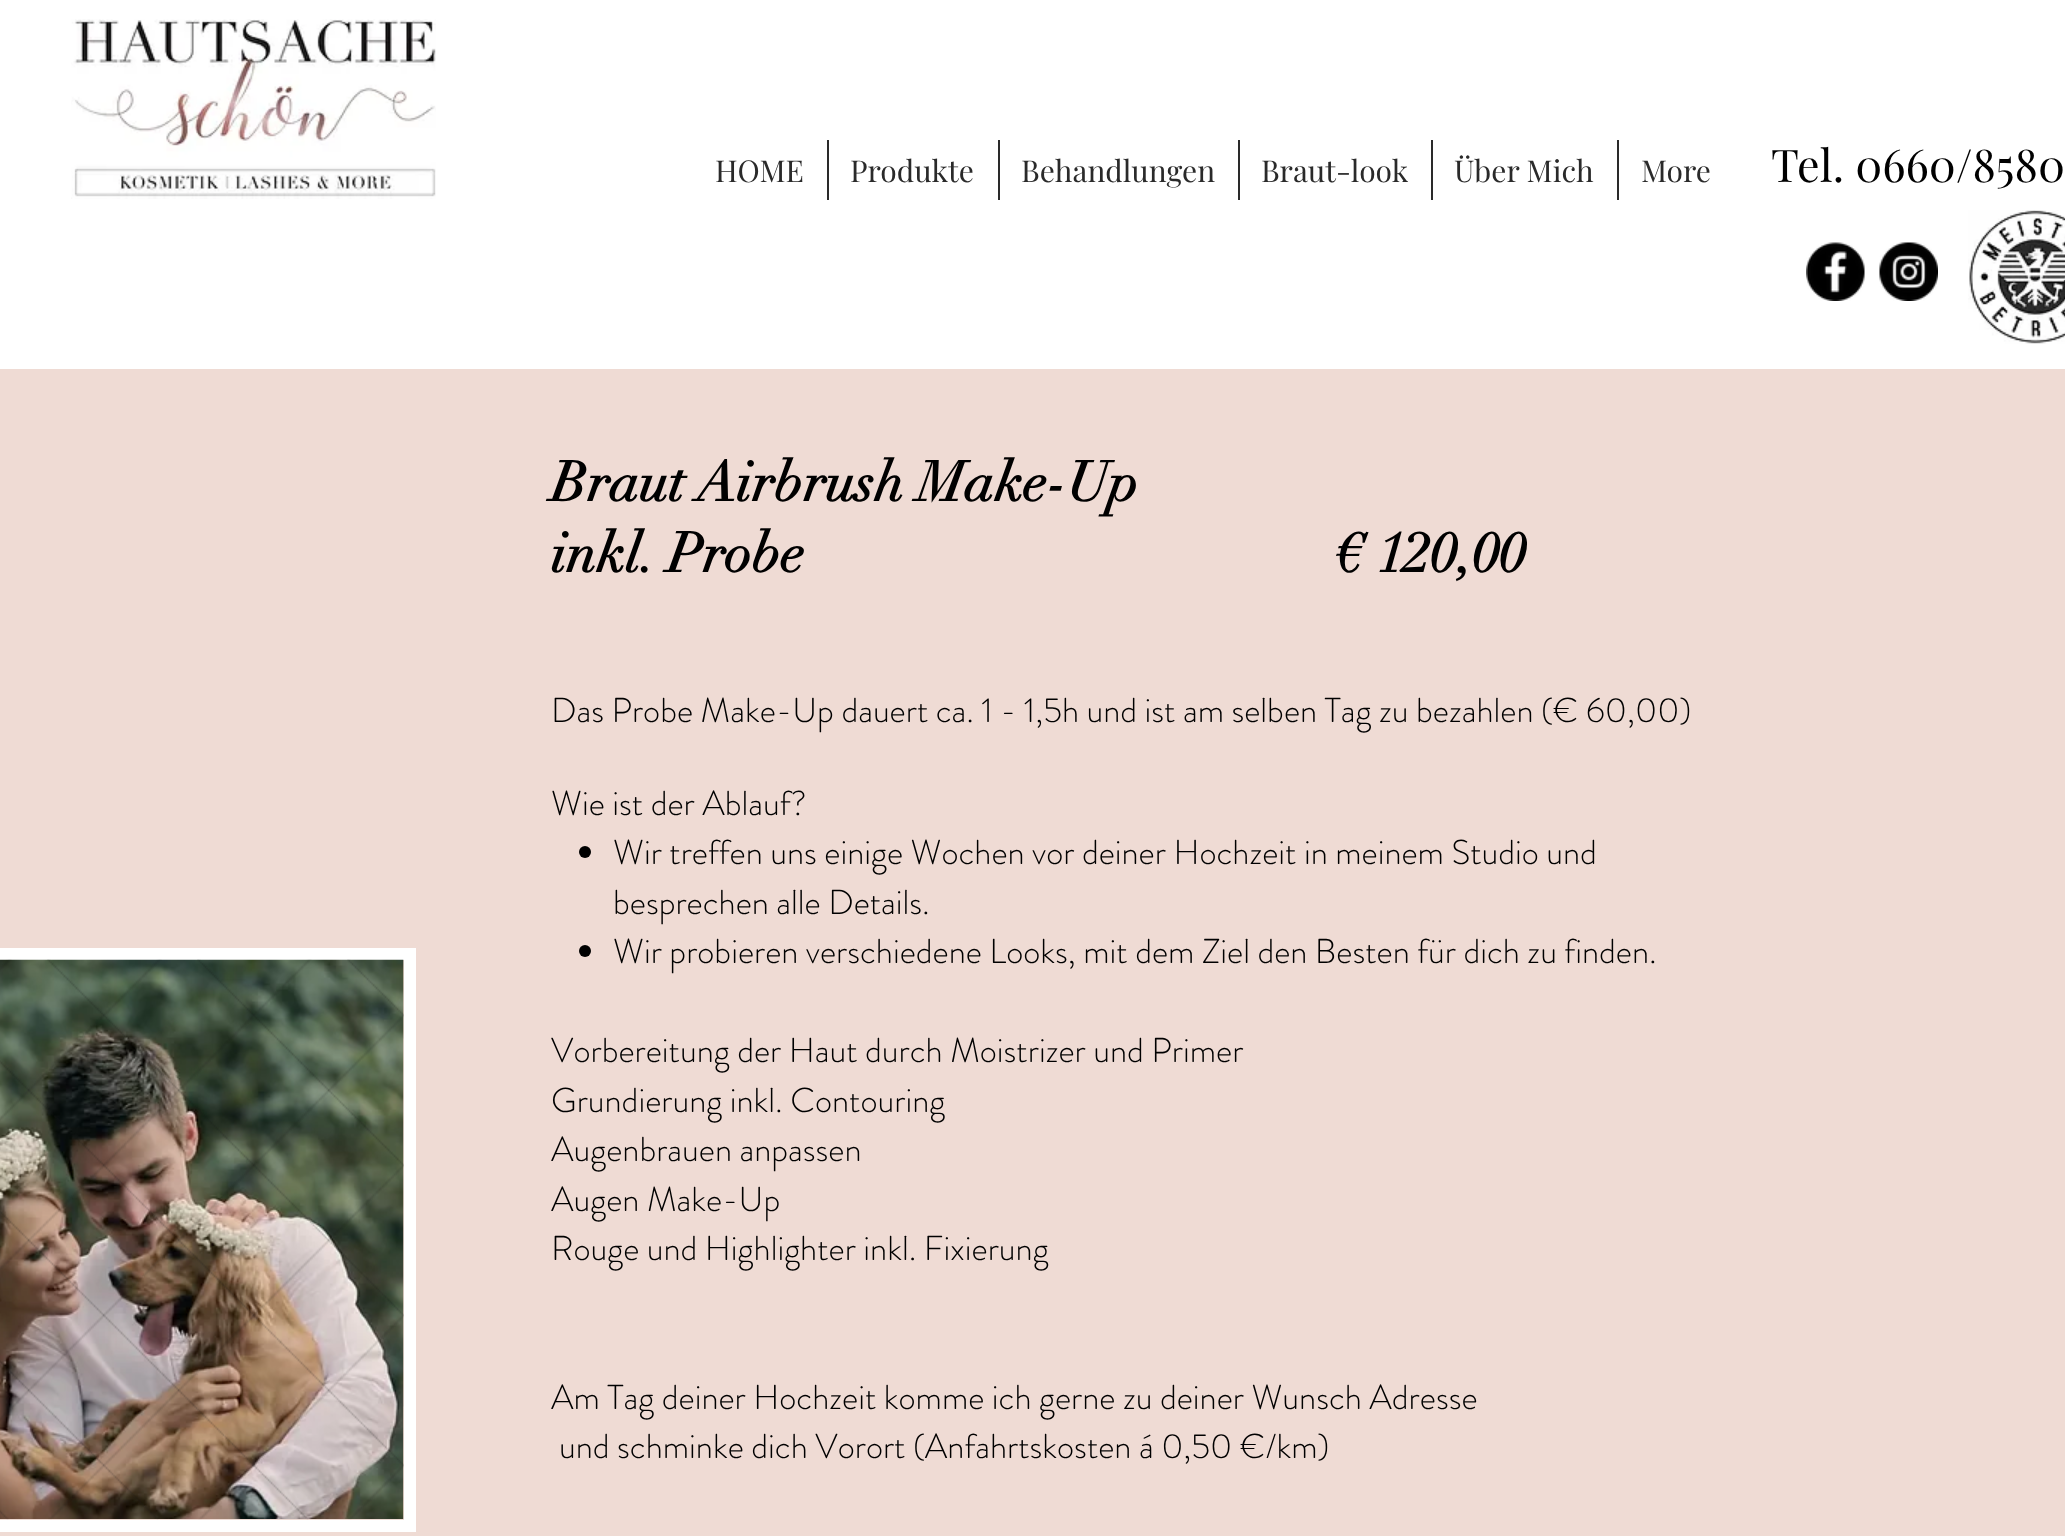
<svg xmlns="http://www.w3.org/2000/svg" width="2065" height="1536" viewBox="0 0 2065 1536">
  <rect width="100%" height="100%" fill="#efdbd4"/>
  <path d="M0 0h2065v369H0z" fill="#fff"/>
  <image x="71" y="19" width="365" height="180" href="img/1.png"/>
  <path d="M827 140h2v60H827z" fill="#2a2a2a"/>
  <path d="M998 140h2v60H998z" fill="#2a2a2a"/>
  <path d="M1238 140h2v60H1238z" fill="#2a2a2a"/>
  <path d="M1431 140h2v60H1431z" fill="#2a2a2a"/>
  <path d="M1617 140h2v60H1617z" fill="#2a2a2a"/>
  <image x="1806" y="242" width="59" height="59" href="img/2.png"/>
  <image x="1879" y="242" width="59" height="59" href="img/3.png"/>
  <image x="1968" y="210" width="97" height="134" href="img/4.png"/>
  <path d="M-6 954h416v572H-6z" fill="none" stroke="#fff" stroke-width="12"/>
  <image x="0" y="959" width="404" height="560" href="img/5.png"/>
  <image x="0" y="959" width="404" height="561" href="img/6.png"/>
  <circle cx="585" cy="852" r="6" fill="#000"/>
  <circle cx="585" cy="951" r="6" fill="#000"/>
  <g font-family="Playfair Display" font-size="30" fill="#2a2a2a">
    <text x="715" y="182">HOME</text>
    <text x="850" y="182">Produkte</text>
    <text x="1021" y="182">Behandlungen</text>
    <text x="1261" y="182">Braut-look</text>
    <text x="1454" y="182">Über Mich</text>
    <text x="1641" y="182">More</text>
  </g>
  <text x="1771" y="182" font-family="Playfair Display" font-size="45" fill="#000">Tel. 0660/8580</text>
  <g font-family="didot" font-size="55.5" font-weight="bold" fill="#000">
    <text x="551" y="501">Braut Airbrush Make-Up</text>
    <text x="551" y="572" xml:space="preserve">inkl. Probe                                        € 120,00</text>
  </g>
  <g font-family="'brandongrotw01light'" font-size="34.5" font-weight="300" fill="#000">
    <text x="551" y="722">Das Probe Make-Up dauert ca. 1 - 1,5h und ist am selben Tag zu bezahlen (€ 60,00)</text>
    <text x="551" y="815">Wie ist der Ablauf?</text>
    <text x="613" y="864">Wir treffen uns einige Wochen vor deiner Hochzeit in meinem Studio und</text>
    <text x="613" y="914">besprechen alle Details.</text>
    <text x="613" y="963">Wir probieren verschiedene Looks, mit dem Ziel den Besten für dich zu finden.</text>
    <text x="551" y="1062">Vorbereitung der Haut durch Moistrizer und Primer</text>
    <text x="551" y="1112">Grundierung inkl. Contouring</text>
    <text x="551" y="1161">Augenbrauen anpassen</text>
    <text x="551" y="1211">Augen Make-Up</text>
    <text x="551" y="1260">Rouge und Highlighter inkl. Fixierung</text>
    <text x="551" y="1409">Am Tag deiner Hochzeit komme ich gerne zu deiner Wunsch Adresse</text>
    <text x="559" y="1458">und schminke dich Vorort (Anfahrtskosten á 0,50 €/km)</text>
  </g>
</svg>
